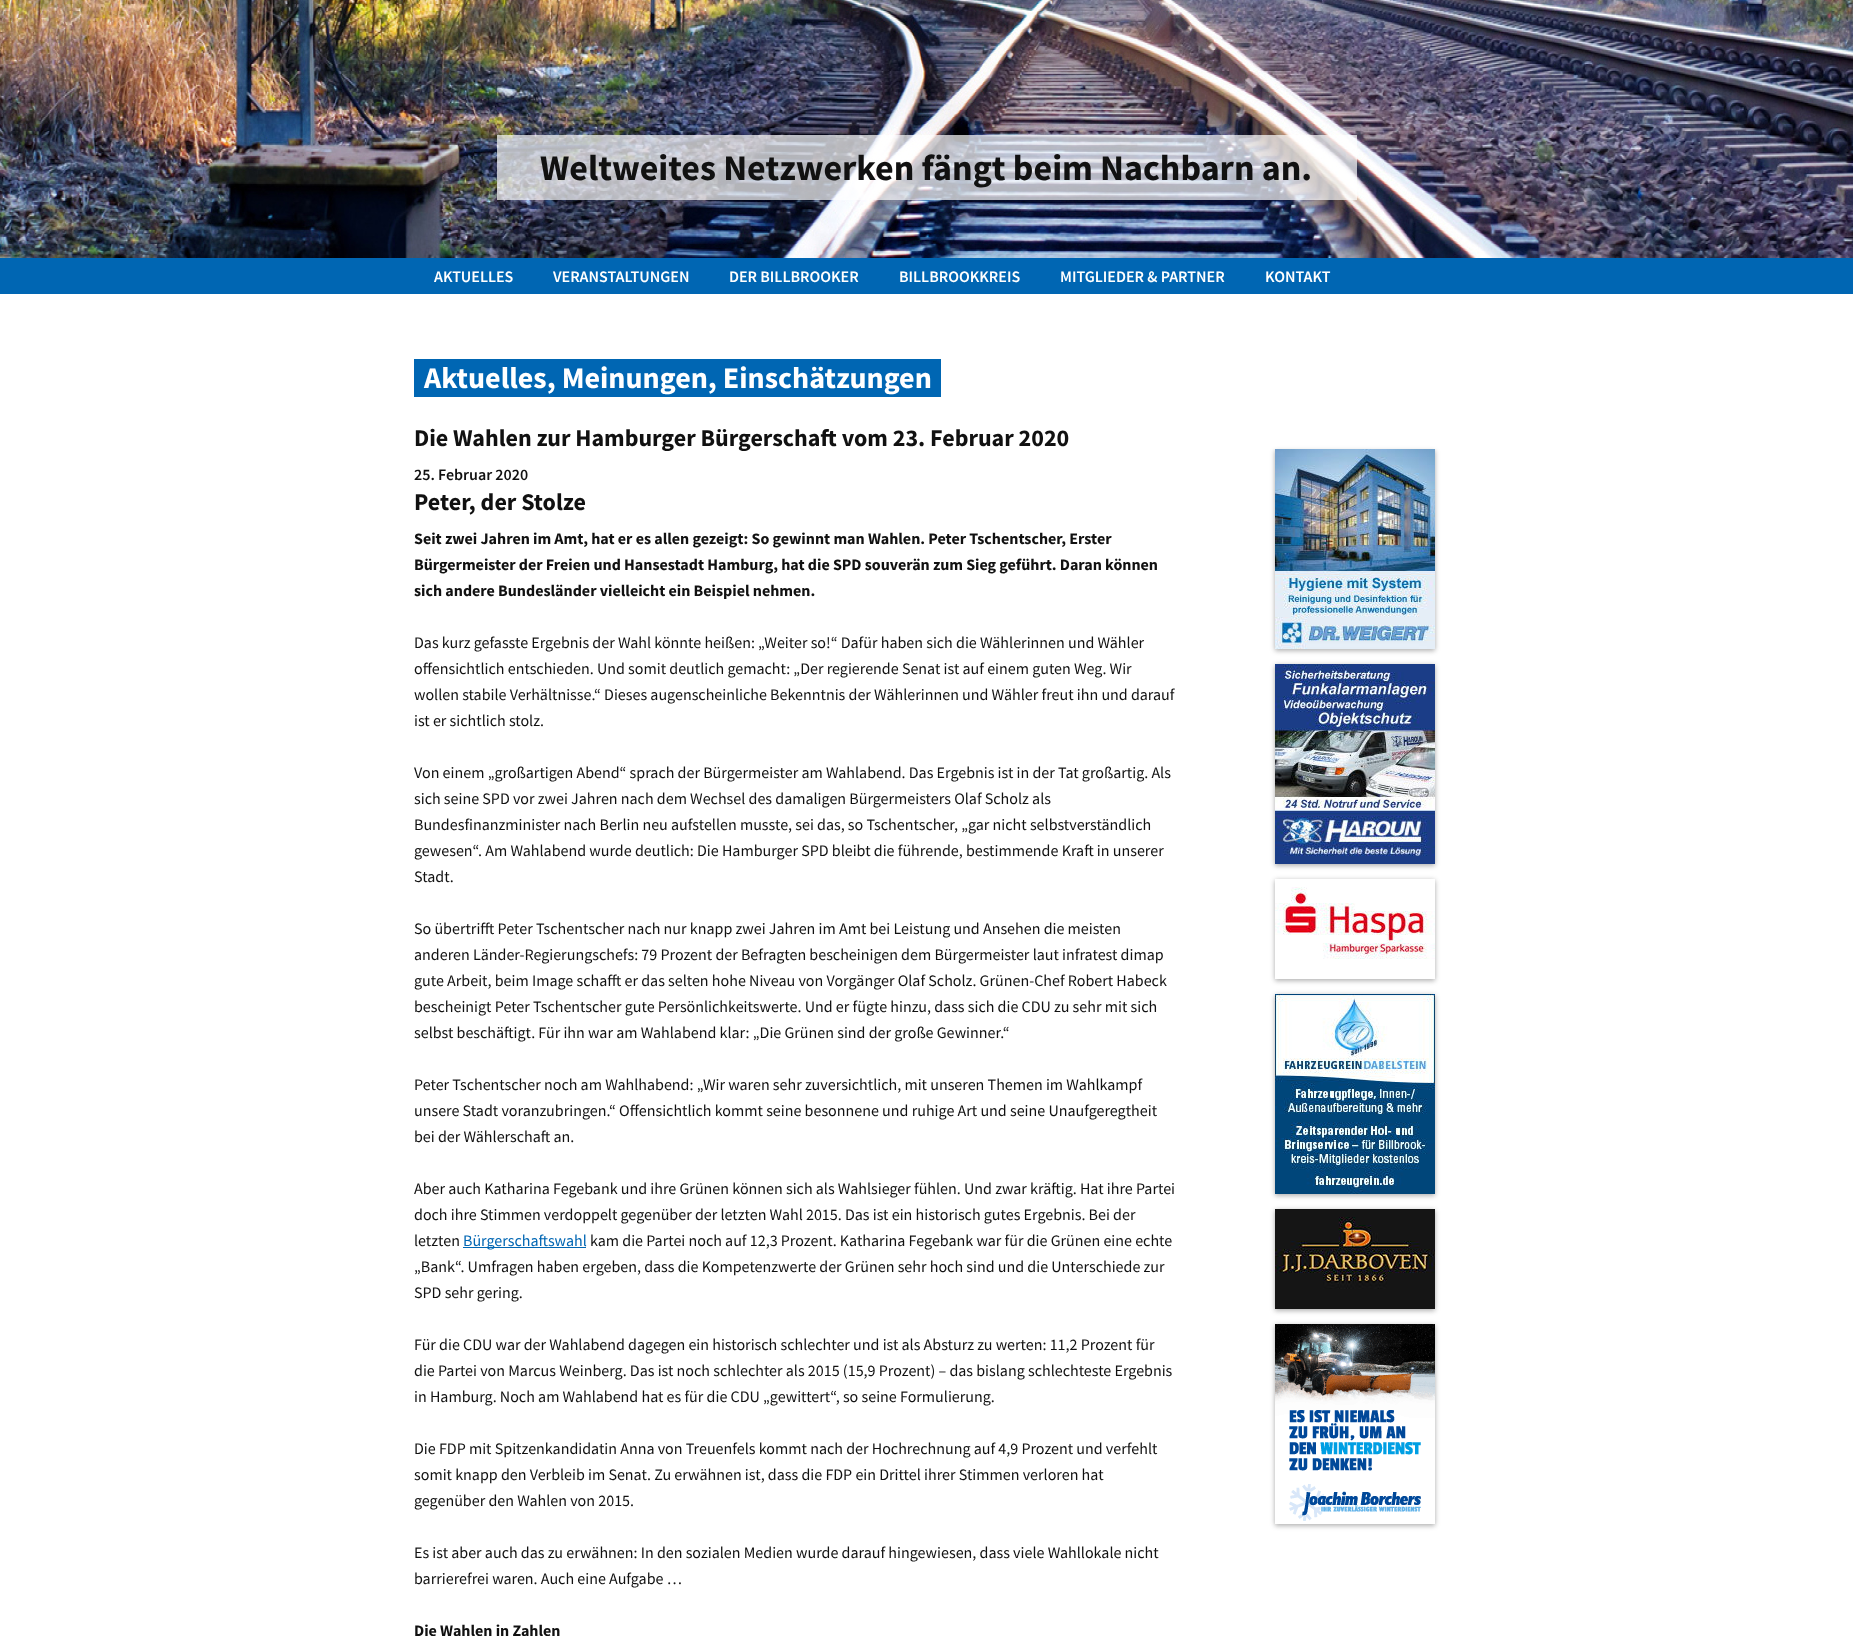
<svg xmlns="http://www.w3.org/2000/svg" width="1853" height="1636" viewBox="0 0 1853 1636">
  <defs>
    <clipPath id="clip1"><path d="M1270 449h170v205H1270z"/></clipPath>
    <clipPath id="clip2"><path d="M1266 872H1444V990H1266ZM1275 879H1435V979H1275Z" clip-rule="evenodd"/></clipPath>
    <clipPath id="clip3"><path d="M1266 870H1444V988H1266ZM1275 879H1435V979H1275Z" clip-rule="evenodd"/></clipPath>
    <clipPath id="clip4"><path d="M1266 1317H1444V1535H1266ZM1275 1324H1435V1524H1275Z" clip-rule="evenodd"/></clipPath>
    <clipPath id="clip5"><path d="M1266 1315H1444V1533H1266ZM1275 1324H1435V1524H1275Z" clip-rule="evenodd"/></clipPath>
  </defs>
  <rect width="100%" height="100%" fill="#fff"/>
  <image x="0" y="0" width="1853" height="258" href="img/1.png"/>
  <path d="M497 135h860v65H497z" fill="#ffffffb3"/>
  <path d="M0 258h1853v36H0z" fill="#0066b3"/>
  <path d="M414 359h527v38H414z" fill="#0066b3"/>
  <path d="M463 1247h123v1H463z" fill="#0066b3"/>
  <path d="M1275 451h160v200H1275z" fill="#00000040" filter="blur(2.5px)"/>
  <g clip-path="url(#clip1)">
    <path d="M1275 449h160v200H1275z" fill="#0000001a" filter="blur(2.5px)"/>
  </g>
  <image x="1275" y="449" width="160" height="200" href="img/2.png"/>
  <path d="M1275 666h160v200H1275z" fill="#00000040" filter="blur(2.5px)"/>
  <path d="M1275 664h160v200H1275z" fill="#0000001a" filter="blur(2.5px)"/>
  <image x="1275" y="664" width="160" height="200" href="img/3.png"/>
  <g clip-path="url(#clip2)">
    <path d="M1275 881h160v100H1275z" fill="#00000040" filter="blur(2.5px)"/>
  </g>
  <g clip-path="url(#clip3)">
    <path d="M1275 879h160v100H1275z" fill="#0000001a" filter="blur(2.5px)"/>
  </g>
  <image x="1275" y="887" width="160" height="72" href="img/4.png"/>
  <path d="M1275 996h160v200H1275z" fill="#00000040" filter="blur(2.5px)"/>
  <path d="M1275 994h160v200H1275z" fill="#0000001a" filter="blur(2.5px)"/>
  <image x="1275" y="994" width="160" height="200" href="img/5.png"/>
  <path d="M1275 1211h160v100H1275z" fill="#00000040" filter="blur(2.5px)"/>
  <path d="M1275 1209h160v100H1275z" fill="#0000001a" filter="blur(2.5px)"/>
  <image x="1275" y="1209" width="160" height="100" href="img/6.png"/>
  <g clip-path="url(#clip4)">
    <path d="M1275 1326h160v200H1275z" fill="#00000040" filter="blur(2.5px)"/>
  </g>
  <g clip-path="url(#clip5)">
    <path d="M1275 1324h160v200H1275z" fill="#0000001a" filter="blur(2.5px)"/>
  </g>
  <image x="1275" y="1324" width="160" height="197" href="img/7.png"/>
  <text x="540" y="180" font-family="Source Sans Pro" font-size="36" font-weight="bold" fill="#111">Weltweites Netzwerken fängt beim Nachbarn an.</text>
  <g font-family="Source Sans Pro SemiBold" font-size="16" font-weight="600" fill="#fff">
    <text x="434" y="282">AKTUELLES</text>
    <text x="553" y="282">VERANSTALTUNGEN</text>
    <text x="729" y="282">DER BILLBROOKER</text>
    <text x="899" y="282">BILLBROOKKREIS</text>
    <text x="1060" y="282">MITGLIEDER &amp; PARTNER</text>
    <text x="1265" y="282">KONTAKT</text>
  </g>
  <text x="424" y="388" font-family="Source Sans Pro" font-size="30" font-weight="bold" fill="#fff">Aktuelles, Meinungen, Einschätzungen</text>
  <text x="414" y="446" font-family="Source Sans Pro" font-size="24" font-weight="bold" fill="#111">Die Wahlen zur Hamburger Bürgerschaft vom 23. Februar 2020</text>
  <text x="414" y="480" font-family="Source Sans Pro SemiBold" font-size="16" font-weight="600" fill="#111">25. Februar 2020</text>
  <text x="414" y="510" font-family="Source Sans Pro" font-size="24" font-weight="bold" fill="#111">Peter, der Stolze</text>
  <g font-family="Source Sans Pro" font-size="16" font-weight="bold" fill="#111">
    <text x="414" y="544">Seit zwei Jahren im Amt, hat er es allen gezeigt: So gewinnt man Wahlen. Peter Tschentscher, Erster</text>
    <text x="414" y="570">Bürgermeister der Freien und Hansestadt Hamburg, hat die SPD souverän zum Sieg geführt. Daran können</text>
    <text x="414" y="596">sich andere Bundesländer vielleicht ein Beispiel nehmen.</text>
  </g>
  <g font-family="Source Sans Pro" font-size="16" fill="#111">
    <text x="414" y="648">Das kurz gefasste Ergebnis der Wahl könnte heißen: „Weiter so!“ Dafür haben sich die Wählerinnen und Wähler</text>
    <text x="414" y="674">offensichtlich entschieden. Und somit deutlich gemacht: „Der regierende Senat ist auf einem guten Weg. Wir</text>
    <text x="414" y="700">wollen stabile Verhältnisse.“ Dieses augenscheinliche Bekenntnis der Wählerinnen und Wähler freut ihn und darauf</text>
    <text x="414" y="726">ist er sichtlich stolz.</text>
    <text x="414" y="778">Von einem „großartigen Abend“ sprach der Bürgermeister am Wahlabend. Das Ergebnis ist in der Tat großartig. Als</text>
    <text x="414" y="804">sich seine SPD vor zwei Jahren nach dem Wechsel des damaligen Bürgermeisters Olaf Scholz als</text>
    <text x="414" y="830">Bundesfinanzminister nach Berlin neu aufstellen musste, sei das, so Tschentscher, „gar nicht selbstverständlich</text>
    <text x="414" y="856">gewesen“. Am Wahlabend wurde deutlich: Die Hamburger SPD bleibt die führende, bestimmende Kraft in unserer</text>
    <text x="414" y="882">Stadt.</text>
    <text x="414" y="934">So übertrifft Peter Tschentscher nach nur knapp zwei Jahren im Amt bei Leistung und Ansehen die meisten</text>
    <text x="414" y="960">anderen Länder-Regierungschefs: 79 Prozent der Befragten bescheinigen dem Bürgermeister laut infratest dimap</text>
    <text x="414" y="986">gute Arbeit, beim Image schafft er das selten hohe Niveau von Vorgänger Olaf Scholz. Grünen-Chef Robert Habeck</text>
    <text x="414" y="1012">bescheinigt Peter Tschentscher gute Persönlichkeitswerte. Und er fügte hinzu, dass sich die CDU zu sehr mit sich</text>
    <text x="414" y="1038">selbst beschäftigt. Für ihn war am Wahlabend klar: „Die Grünen sind der große Gewinner.“</text>
    <text x="414" y="1090">Peter Tschentscher noch am Wahlhabend: „Wir waren sehr zuversichtlich, mit unseren Themen im Wahlkampf</text>
    <text x="414" y="1116">unsere Stadt voranzubringen.“ Offensichtlich kommt seine besonnene und ruhige Art und seine Unaufgeregtheit</text>
    <text x="414" y="1142">bei der Wählerschaft an.</text>
    <text x="414" y="1194">Aber auch Katharina Fegebank und ihre Grünen können sich als Wahlsieger fühlen. Und zwar kräftig. Hat ihre Partei</text>
    <text x="414" y="1220">doch ihre Stimmen verdoppelt gegenüber der letzten Wahl 2015. Das ist ein historisch gutes Ergebnis. Bei der</text>
    <text x="414" y="1246">letzten</text>
  </g>
  <text x="463" y="1246" font-family="Source Sans Pro" font-size="16" fill="#0066b3">Bürgerschaftswahl</text>
  <g font-family="Source Sans Pro" font-size="16" fill="#111">
    <text x="590" y="1246">kam die Partei noch auf 12,3 Prozent. Katharina Fegebank war für die Grünen eine echte</text>
    <text x="414" y="1272">„Bank“. Umfragen haben ergeben, dass die Kompetenzwerte der Grünen sehr hoch sind und die Unterschiede zur</text>
    <text x="414" y="1298">SPD sehr gering.</text>
    <text x="414" y="1350">Für die CDU war der Wahlabend dagegen ein historisch schlechter und ist als Absturz zu werten: 11,2 Prozent für</text>
    <text x="414" y="1376">die Partei von Marcus Weinberg. Das ist noch schlechter als 2015 (15,9 Prozent) – das bislang schlechteste Ergebnis</text>
    <text x="414" y="1402">in Hamburg. Noch am Wahlabend hat es für die CDU „gewittert“, so seine Formulierung.</text>
    <text x="414" y="1454">Die FDP mit Spitzenkandidatin Anna von Treuenfels kommt nach der Hochrechnung auf 4,9 Prozent und verfehlt</text>
    <text x="414" y="1480">somit knapp den Verbleib im Senat. Zu erwähnen ist, dass die FDP ein Drittel ihrer Stimmen verloren hat</text>
    <text x="414" y="1506">gegenüber den Wahlen von 2015.</text>
    <text x="414" y="1558">Es ist aber auch das zu erwähnen: In den sozialen Medien wurde darauf hingewiesen, dass viele Wahllokale nicht</text>
    <text x="414" y="1584">barrierefrei waren. Auch eine Aufgabe …</text>
  </g>
  <text x="414" y="1636" font-family="Source Sans Pro" font-size="16" font-weight="bold" fill="#111">Die Wahlen in Zahlen</text>
</svg>
